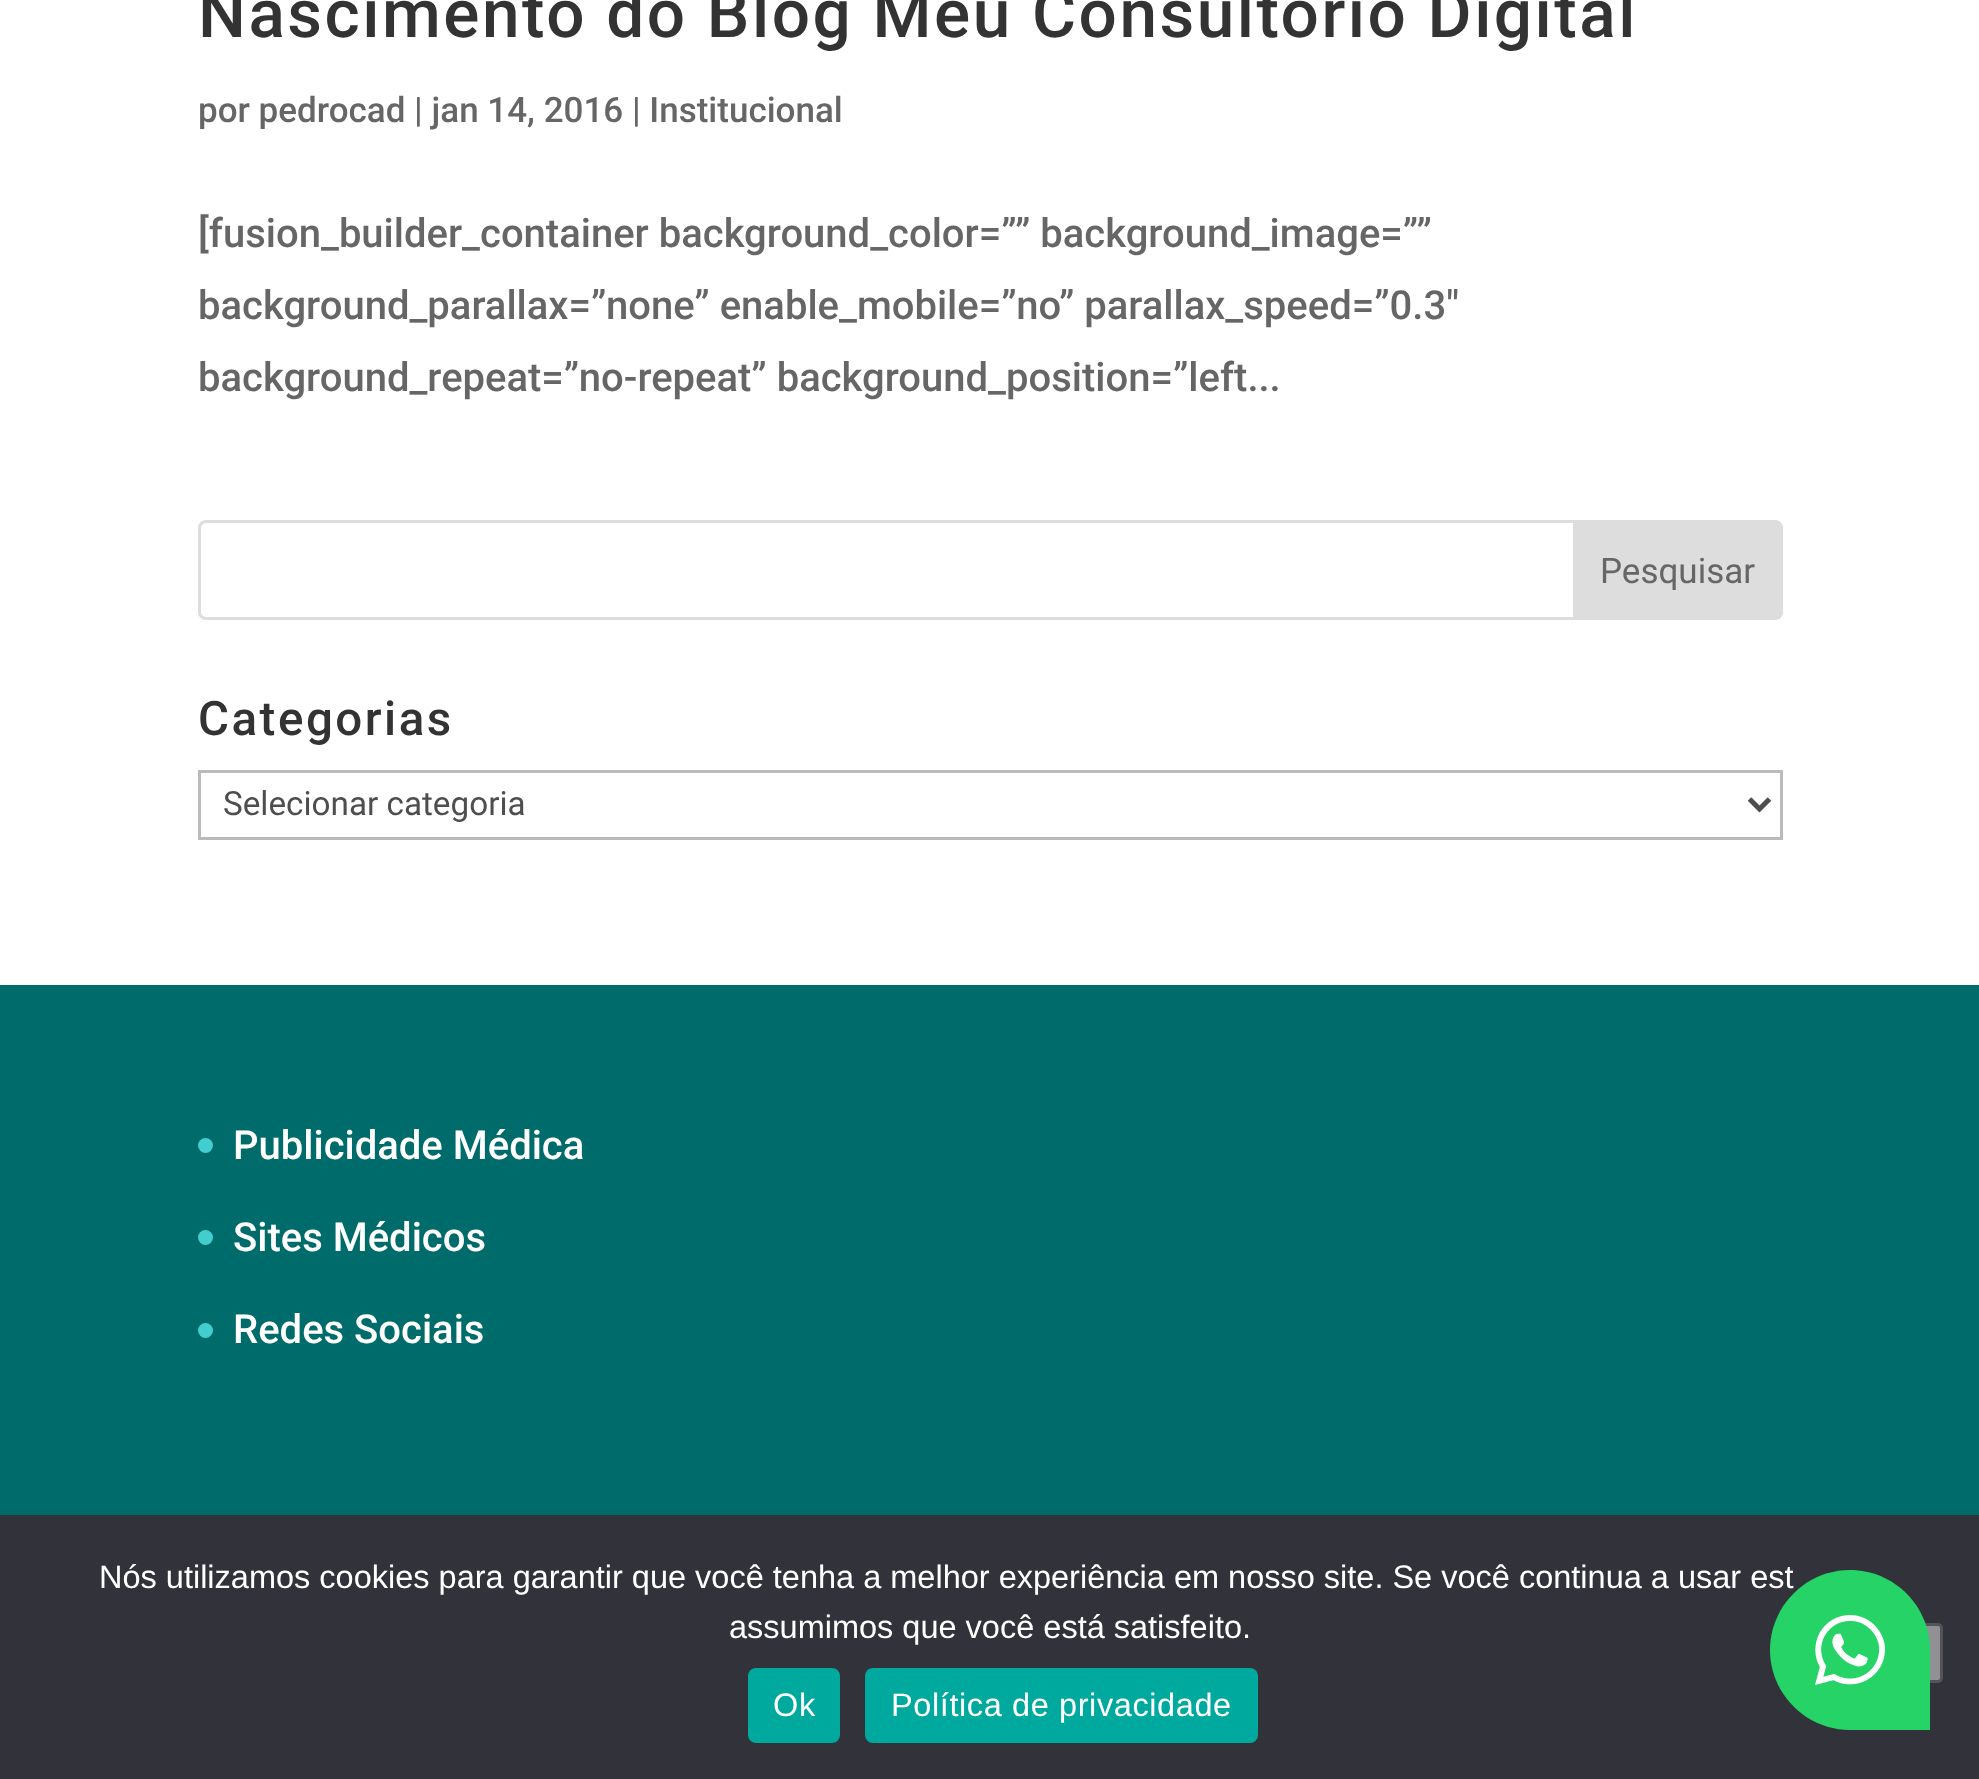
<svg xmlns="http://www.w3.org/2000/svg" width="1979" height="1779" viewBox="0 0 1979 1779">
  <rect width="100%" height="100%" fill="#fff"/>
  <rect x="199.5" y="521.5" width="1582" height="97" rx="6.5" fill="none" stroke="#ddd" stroke-width="3"/>
  <path d="M1574.5 521.5H1775C1778.5 521.5 1781.5 524.5 1781.5 528V612C1781.5 615.5 1778.5 618.5 1775 618.5H1574.5Z" fill="#ddd" stroke="#ddd" stroke-width="3"/>
  <path d="M199.5 771.5h1582v67H199.5z" fill="none" stroke="#bbb" stroke-width="3"/>
  <path d="M1749.5 799L1759.5 809L1769.5 799" fill="none" stroke="#4e4e4e" stroke-width="5"/>
  <path d="M0 985h1979v530H0z" fill="#006b6b"/>
  <circle cx="205.5" cy="1145.5" r="7.5" fill="#42cece"/>
  <circle cx="205.5" cy="1237.5" r="7.5" fill="#42cece"/>
  <circle cx="205.5" cy="1330.5" r="7.5" fill="#42cece"/>
  <path d="M0 1515h1979v264H0z" fill="#32323a"/>
  <rect x="1884.5" y="1624.5" width="57" height="57" rx="3.5" fill="#919195" stroke="#545458" stroke-width="3"/>
  <rect x="748" y="1668" width="92" height="75" rx="8" fill="#00a99d"/>
  <rect x="865" y="1668" width="393" height="75" rx="8" fill="#00a99d"/>
  <text x="198" y="37" font-family="Roboto" font-size="67.5" font-weight="500" letter-spacing="2.5" fill="#333">Nascimento do Blog Meu Consultório Digital</text>
  <text x="198" y="122" font-family="Roboto" font-size="35" font-weight="500" fill="#666">por pedrocad | jan 14, 2016 | Institucional</text>
  <g font-family="Roboto" font-size="40" font-weight="500" fill="#666">
    <text x="198" y="247">[fusion_builder_container background_color=”” background_image=””</text>
    <text x="198" y="319">background_parallax=”none” enable_mobile=”no” parallax_speed=”0.3″</text>
    <text x="198" y="391">background_repeat=”no-repeat” background_position=”left...</text>
  </g>
  <text x="1600" y="583" font-family="Roboto" font-size="35" fill="#666">Pesquisar</text>
  <text x="198" y="735" font-family="Roboto" font-size="47.5" font-weight="500" letter-spacing="2.5" fill="#333">Categorias</text>
  <text x="223" y="815" font-family="Roboto" font-size="33.25" fill="#4e4e4e">Selecionar categoria</text>
  <g font-family="Roboto" font-size="40" font-weight="500" fill="#fff">
    <text x="233" y="1159">Publicidade Médica</text>
    <text x="233" y="1251">Sites Médicos</text>
    <text x="233" y="1343">Redes Sociais</text>
  </g>
  <g font-family="Liberation Sans" font-size="32.5" fill="#fff">
    <text x="99" y="1588">Nós utilizamos cookies para garantir que você tenha a melhor experiência em nosso site. Se você continua a usar est</text>
    <text x="729" y="1638">assumimos que você está satisfeito.</text>
  </g>
  <g font-family="Liberation Sans" font-size="32.5" letter-spacing="0.6" fill="#fff">
    <text x="773" y="1716">Ok</text>
    <text x="891" y="1716">Política de privacidade</text>
  </g>
  <path d="M1850 1570C1894 1570 1930 1606 1930 1650V1730H1850C1806 1730 1770 1694 1770 1650C1770 1606 1806 1570 1850 1570Z" fill="#25d366"/>
  <image x="1815" y="1615" width="70" height="70" href="img/1.png"/>
</svg>
